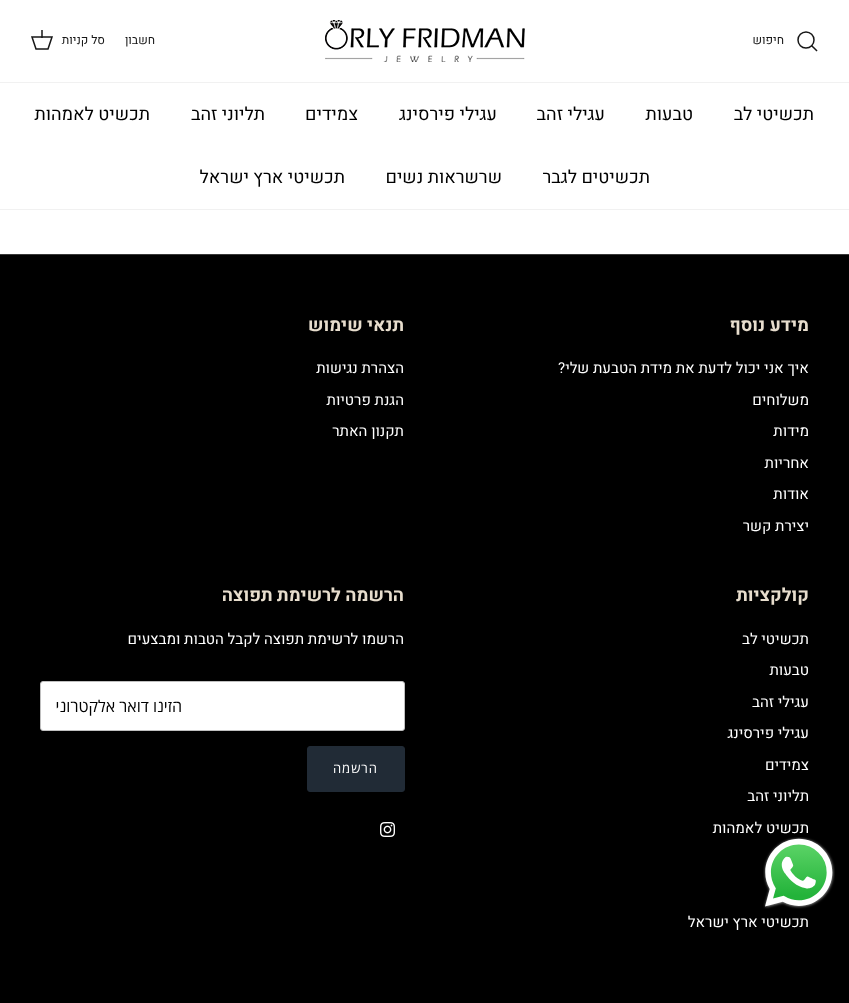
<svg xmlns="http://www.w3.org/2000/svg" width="849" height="1003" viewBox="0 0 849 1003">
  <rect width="100%" height="100%" fill="#fff"/>
  <path d="M0 82h849v1H0z" fill="#f1f1f1"/>
  <circle cx="806" cy="40" r="8" fill="none" stroke="#171717" stroke-width="1.5"/>
  <path d="M812 46L816.5 50.5" fill="none" stroke="#171717" stroke-width="1.5" stroke-linecap="square"/>
  <image x="325" y="20" width="200" height="42" href="img/1.png"/>
  <path d="M32 37H52L48 49H36Z" fill="none" stroke="#171717" stroke-width="1.5"/>
  <path d="M41 30h2v8H41z" fill="#171717bf"/>
  <path d="M0 209h849v1H0z" fill="#f1f1f1"/>
  <path d="M0 255h849v748H0z" fill="#000"/>
  <path d="M0 254h849v1H0z" fill="#383838"/>
  <rect x="40.5" y="681.5" width="364" height="49" rx="2.5" fill="#fff" stroke="#bfbfbf"/>
  <rect x="307.5" y="746.5" width="97" height="45" rx="2.5" fill="#212b36" stroke="#212b36"/>
  <image x="380" y="822" width="15" height="15" href="img/2.png"/>
  <image x="763" y="837" width="72" height="72" href="img/3.png"/>
  <g font-family="Heebo" font-size="12" direction="rtl" fill="#171717">
    <text x="784" y="44">חיפוש</text>
    <text x="155" y="44">חשבון</text>
    <text x="105" y="44">סל קניות</text>
  </g>
  <g font-family="Heebo" font-size="18" direction="rtl" fill="#000">
    <text x="814" y="120">תכשיטי לב</text>
    <text x="693" y="120">טבעות</text>
    <text x="605" y="120">עגילי זהב</text>
    <text x="497" y="120">עגילי פירסינג</text>
    <text x="358" y="120">צמידים</text>
    <text x="265" y="120">תליוני זהב</text>
    <text x="150" y="120">תכשיט לאמהות</text>
    <text x="650" y="183">תכשיטים לגבר</text>
    <text x="502" y="183">שרשראות נשים</text>
    <text x="345" y="183">תכשיטי ארץ ישראל</text>
  </g>
  <text x="809" y="331" font-family="Heebo" font-size="18" font-weight="bold" direction="rtl" fill="#e7ddcd">מידע נוסף</text>
  <g font-family="Heebo" font-size="15" direction="rtl" fill="#fff">
    <text x="809" y="373">איך אני יכול לדעת את מידת הטבעת שלי?</text>
    <text x="809" y="405">משלוחים</text>
    <text x="809" y="436">מידות</text>
    <text x="809" y="468">אחריות</text>
    <text x="809" y="499">אודות</text>
    <text x="809" y="531">יצירת קשר</text>
  </g>
  <text x="404" y="331" font-family="Heebo" font-size="18" font-weight="bold" direction="rtl" fill="#e7ddcd">תנאי שימוש</text>
  <g font-family="Heebo" font-size="15" direction="rtl" fill="#fff">
    <text x="404" y="373">הצהרת נגישות</text>
    <text x="404" y="405">הגנת פרטיות</text>
    <text x="404" y="436">תקנון האתר</text>
  </g>
  <text x="809" y="601" font-family="Heebo" font-size="18" font-weight="bold" direction="rtl" fill="#e7ddcd">קולקציות</text>
  <g font-family="Heebo" font-size="15" direction="rtl" fill="#fff">
    <text x="809" y="644">תכשיטי לב</text>
    <text x="809" y="675">טבעות</text>
    <text x="809" y="707">עגילי זהב</text>
    <text x="809" y="738">עגילי פירסינג</text>
    <text x="809" y="770">צמידים</text>
    <text x="809" y="801">תליוני זהב</text>
    <text x="809" y="833">תכשיט לאמהות</text>
    <text x="809" y="927">תכשיטי ארץ ישראל</text>
  </g>
  <text x="404" y="601" font-family="Heebo" font-size="18" font-weight="bold" direction="rtl" fill="#e7ddcd">הרשמה לרשימת תפוצה</text>
  <text x="404" y="644" font-family="Heebo" font-size="15" direction="rtl" fill="#fff">הרשמו לרשימת תפוצה לקבל הטבות ומבצעים</text>
  <text x="182" y="712" font-family="Open Sans" font-size="16" direction="rtl" fill="#000">הזינו דואר אלקטרוני</text>
  <text x="378" y="773" font-family="Open Sans" font-size="13" letter-spacing="1" direction="rtl" fill="#fff">הרשמה</text>
</svg>
